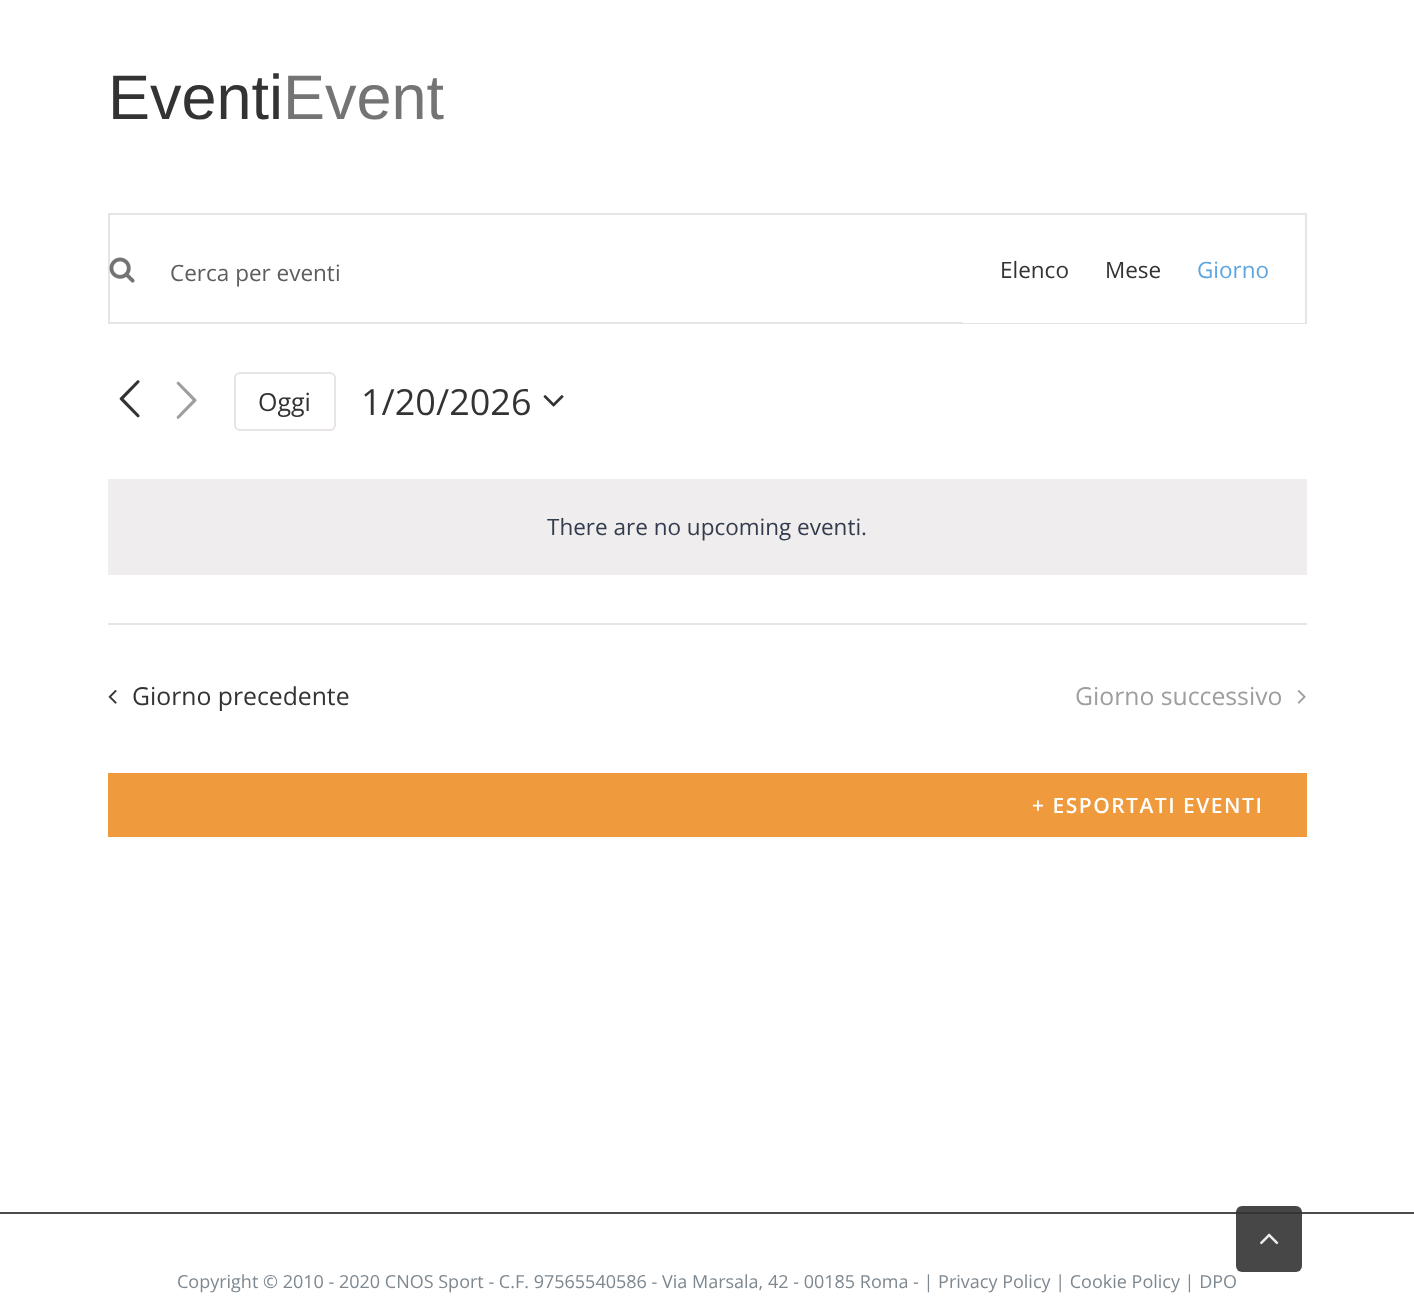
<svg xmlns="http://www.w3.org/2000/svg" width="1414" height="1316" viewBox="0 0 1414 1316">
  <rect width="100%" height="100%" fill="#fff"/>
  <path d="M109 214h1197v109H109z" fill="none" stroke="#e7e4e2" stroke-width="2"/>
  <image x="109" y="257" width="26" height="26" href="img/1.png"/>
  <path d="M963 322h342v1H963z" fill="#fff"/>
  <image x="119" y="380" width="21" height="38" href="img/2.png"/>
  <image x="176" y="381" width="21" height="38" href="img/3.png"/>
  <rect x="235" y="373" width="100" height="57" rx="5" fill="none" stroke="#e7e4e2" stroke-width="2"/>
  <image x="543" y="395" width="21" height="12" href="img/4.png"/>
  <path d="M108 479h1199v96H108z" fill="#efeded"/>
  <path d="M108 623h1199v2H108z" fill="#e7e4e2"/>
  <image x="108" y="690" width="9" height="14" href="img/5.png"/>
  <image x="1297" y="690" width="9" height="14" href="img/6.png"/>
  <path d="M108 773h1199v64H108z" fill="#f09a3e"/>
  <path d="M0 1212h1414v2H0z" fill="#4b4c4d"/>
  <rect x="1236" y="1206" width="66" height="66" rx="6" fill="#333333e6"/>
  <image x="1260" y="1233" width="19" height="12" href="img/7.png"/>
  <text x="108" y="119" font-family="Liberation Sans" font-size="63" fill="#333">Eventi</text>
  <text x="283" y="119" font-family="Liberation Sans" font-size="63" fill="#747474">Event</text>
  <text x="170" y="281" font-family="Open Sans" font-size="22.5" fill="#5d5d5d">Cerca per eventi</text>
  <g font-family="Open Sans" font-size="22.5" fill="#333">
    <text x="1000" y="278">Elenco</text>
    <text x="1105" y="278">Mese</text>
  </g>
  <text x="1197" y="278" font-family="Open Sans" font-size="22.5" fill="#5ea6e0">Giorno</text>
  <text x="258" y="411" font-family="Open Sans" font-size="25" fill="#333">Oggi</text>
  <text x="361" y="415" font-family="Open Sans" font-size="36" fill="#333">1/20/2026</text>
  <text x="547" y="535" font-family="Open Sans" font-size="22.5" fill="#333c4e">There are no upcoming eventi.</text>
  <text x="132" y="705" font-family="Open Sans" font-size="24.75" fill="#333">Giorno precedente</text>
  <text x="1075" y="705" font-family="Open Sans" font-size="24.75" fill="#9e9e9e">Giorno successivo</text>
  <text x="1032" y="813" font-family="Open Sans" font-size="21" font-weight="600" letter-spacing="1.5" fill="#fff">+ ESPORTATI EVENTI</text>
  <text x="177" y="1288" font-family="Open Sans" font-size="18" fill="#7e8890">Copyright © 2010 - 2020 CNOS Sport - C.F. 97565540586 - Via Marsala, 42 - 00185 Roma - | Privacy Policy | Cookie Policy | DPO</text>
</svg>
